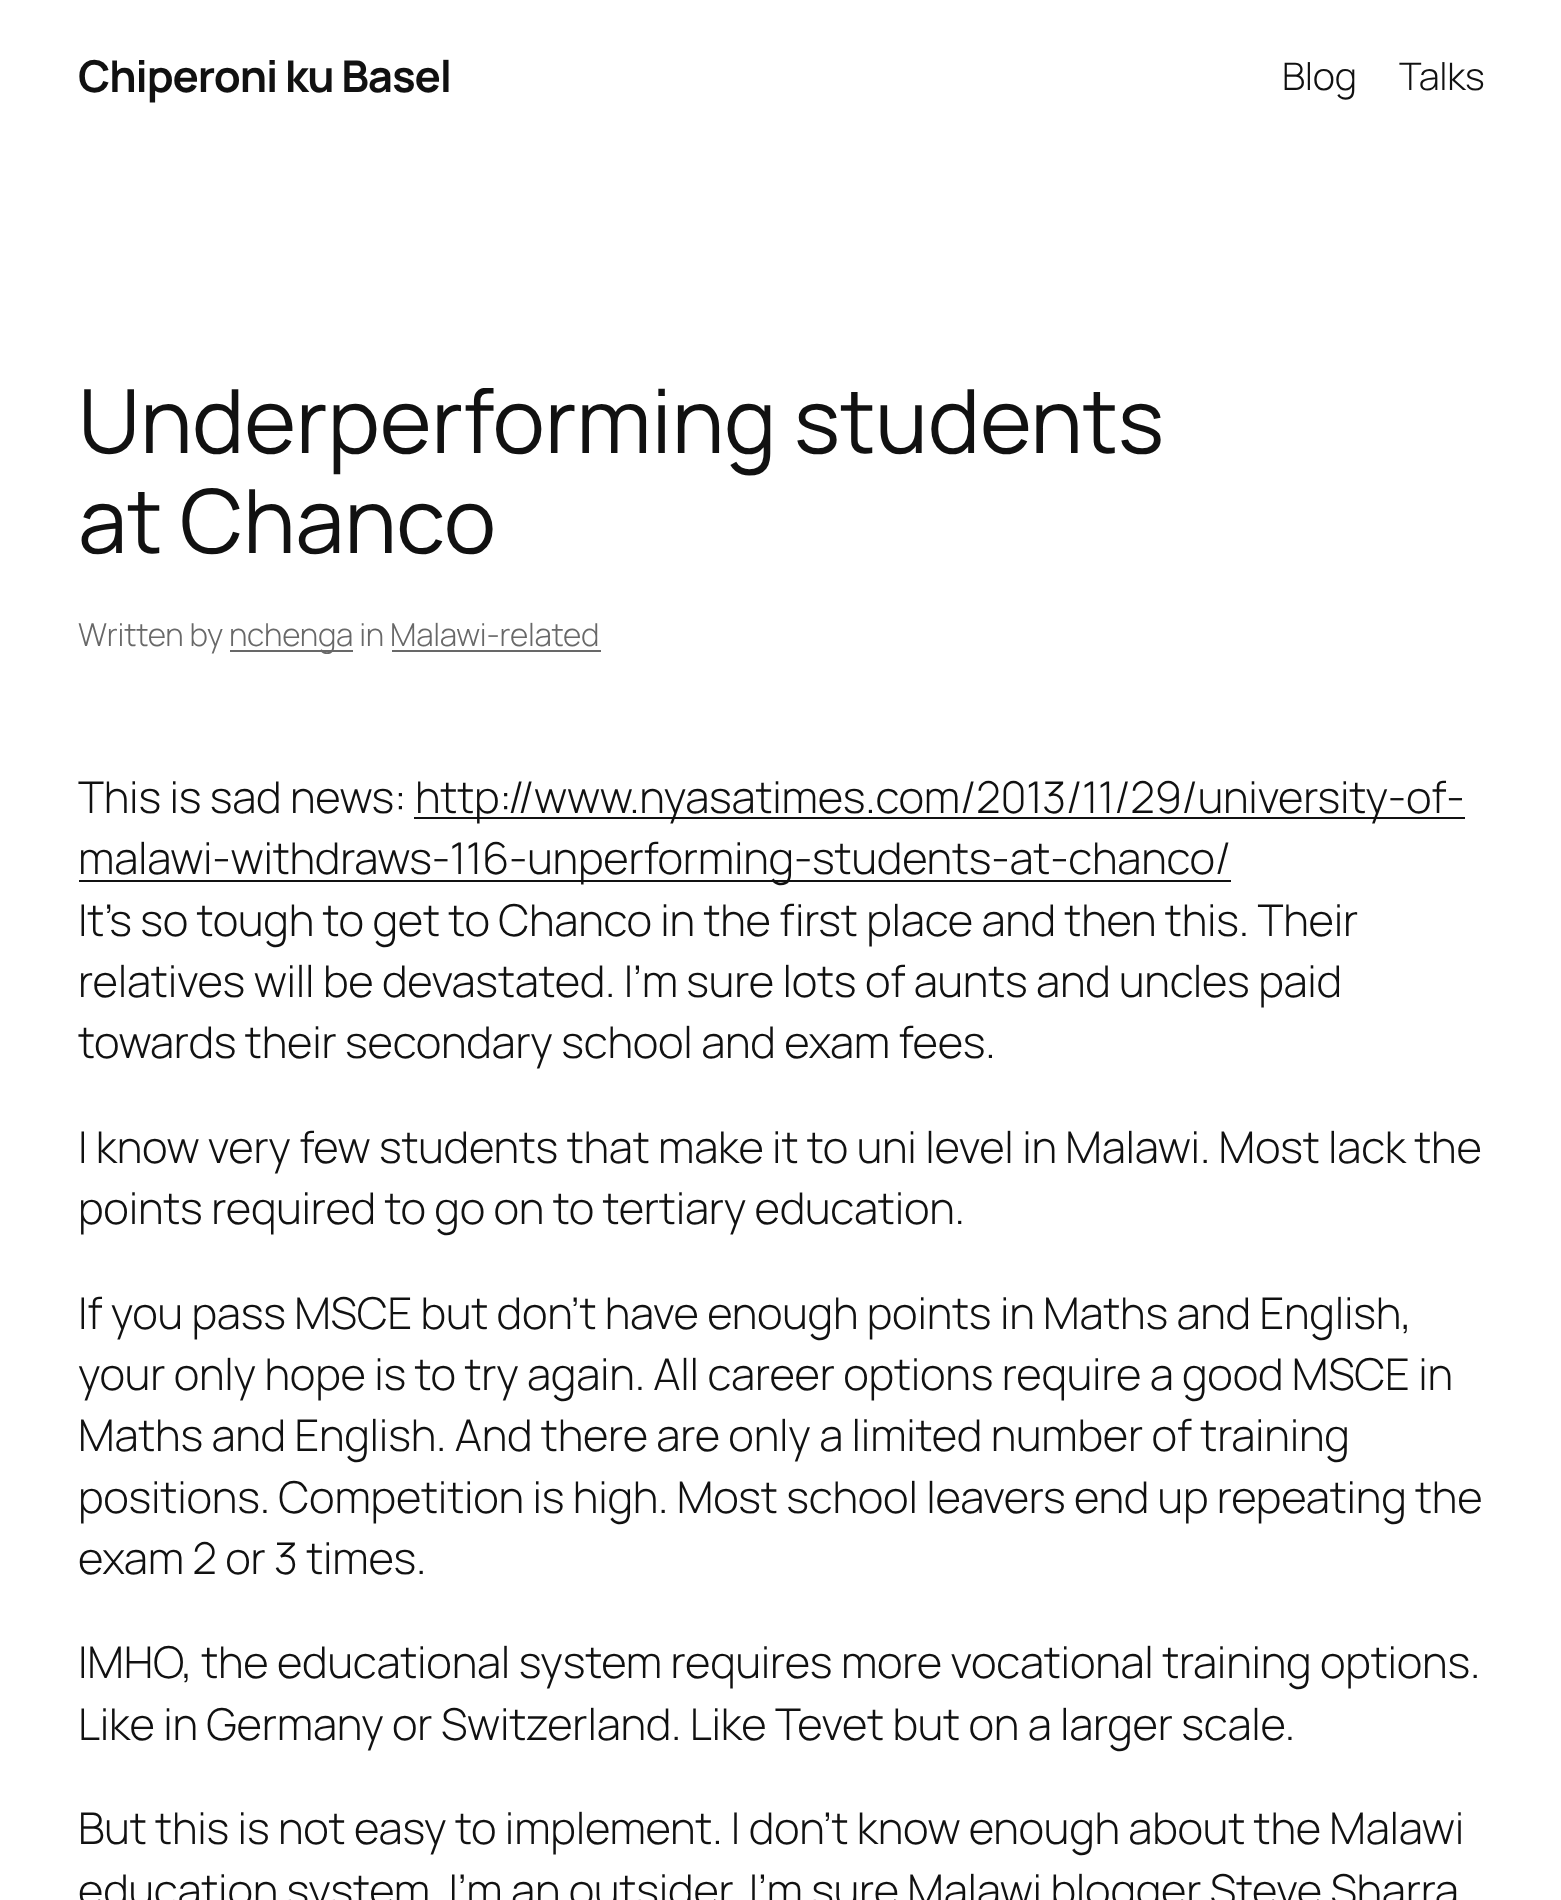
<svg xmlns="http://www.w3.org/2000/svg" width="1561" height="1900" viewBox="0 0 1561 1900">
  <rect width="100%" height="100%" fill="#fff"/>
  <path d="M230 650h123v2H230z" fill="#686868"/>
  <path d="M392 650h209v2H392z" fill="#686868"/>
  <path d="M414 817h1051v2H414z" fill="#111"/>
  <path d="M79 880h1152v2H79z" fill="#111"/>
  <text x="78" y="92" font-family="Manrope" font-size="43.8" font-weight="bold" letter-spacing="-1.1" fill="#111">Chiperoni ku Basel</text>
  <g font-family="Manrope" font-size="38" font-weight="300" letter-spacing="-0.23" fill="#111">
    <text x="1282" y="90">Blog</text>
    <text x="1399" y="90">Talks</text>
  </g>
  <g font-family="Manrope" font-size="88.6" letter-spacing="-0.23" fill="#111">
    <text x="78" y="453">Underperforming students</text>
    <text x="78" y="553">at Chanco</text>
  </g>
  <g font-family="Manrope" font-size="31.5" font-weight="300" letter-spacing="-0.23" fill="#686868">
    <text x="78" y="646">Written by</text>
    <text x="229" y="646">nchenga in Malawi-related</text>
  </g>
  <g font-family="Manrope" font-size="43.8" font-weight="300" letter-spacing="-0.23" fill="#111">
    <text x="78" y="813">This is sad news:</text>
    <text x="415" y="813">http://www.nyasatimes.com/2013/11/29/university-of-</text>
    <text x="78" y="874">malawi-withdraws-116-unperforming-students-at-chanco/</text>
    <text x="78" y="936">It’s so tough to get to Chanco in the first place and then this. Their</text>
    <text x="78" y="997">relatives will be devastated. I’m sure lots of aunts and uncles paid</text>
    <text x="78" y="1058">towards their secondary school and exam fees.</text>
    <text x="78" y="1163">I know very few students that make it to uni level in Malawi. Most lack the</text>
    <text x="78" y="1224">points required to go on to tertiary education.</text>
    <text x="78" y="1329">If you pass MSCE but don’t have enough points in Maths and English,</text>
    <text x="78" y="1390">your only hope is to try again. All career options require a good MSCE in</text>
    <text x="78" y="1451">Maths and English. And there are only a limited number of training</text>
    <text x="78" y="1513">positions. Competition is high. Most school leavers end up repeating the</text>
    <text x="78" y="1574">exam 2 or 3 times.</text>
    <text x="78" y="1678">IMHO, the educational system requires more vocational training options.</text>
    <text x="78" y="1740">Like in Germany or Switzerland. Like Tevet but on a larger scale.</text>
    <text x="78" y="1844">But this is not easy to implement. I don’t know enough about the Malawi</text>
    <text x="78" y="1906">education system. I’m an outsider. I’m sure Malawi blogger Steve Sharra</text>
  </g>
</svg>
